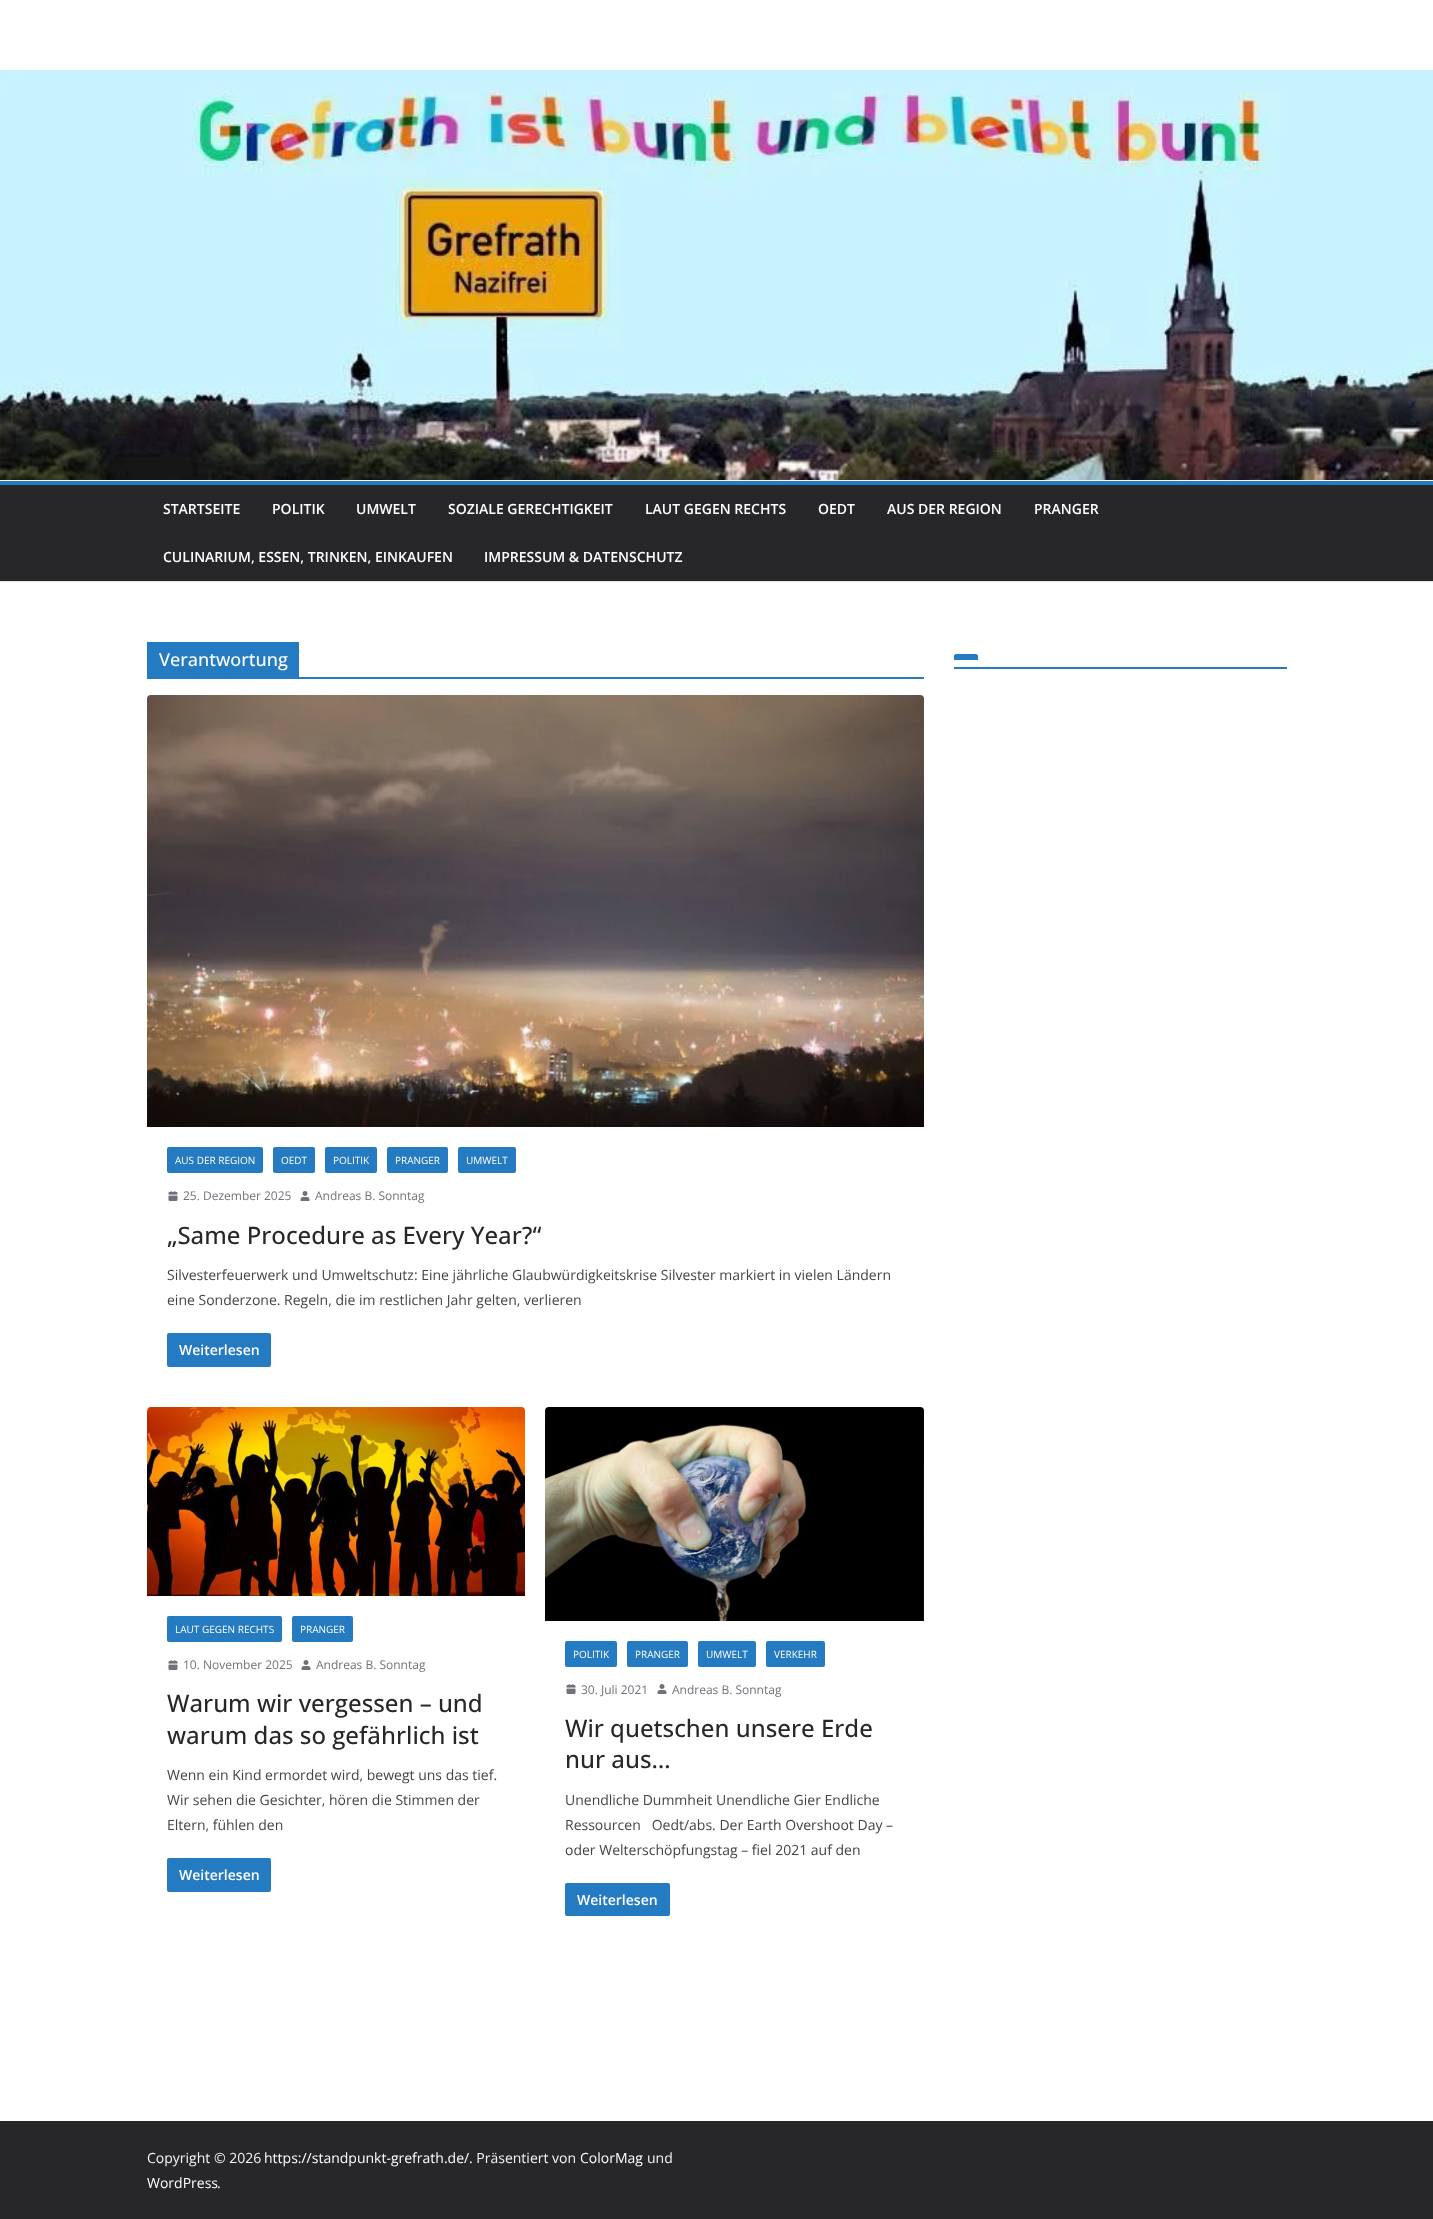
<svg xmlns="http://www.w3.org/2000/svg" width="1433" height="2219" viewBox="0 0 1433 2219">
  <rect width="100%" height="100%" fill="#fff"/>
  <path d="M0 581h1433v1H0z" fill="#e4e4e7"/>
  <image x="0" y="70" width="1433" height="410" href="img/1.png"/>
  <path d="M0 485h1433v96H0z" fill="#27272a"/>
  <path d="M0 481h1433v4H0z" fill="#257bc1"/>
  <path d="M147 677h777v2H147z" fill="#257bc1"/>
  <path d="M147 642h152v35H147z" fill="#257bc1"/>
  <image x="147" y="695" width="777" height="432" href="img/2.png"/>
  <rect x="167" y="1147" width="96" height="26" rx="2" fill="#257bc1"/>
  <rect x="273" y="1147" width="42" height="26" rx="2" fill="#257bc1"/>
  <rect x="325" y="1147" width="52" height="26" rx="2" fill="#257bc1"/>
  <rect x="387" y="1147" width="61" height="26" rx="2" fill="#257bc1"/>
  <rect x="458" y="1147" width="58" height="26" rx="2" fill="#257bc1"/>
  <image x="168" y="1191" width="10" height="10" href="img/3.png"/>
  <image x="300" y="1191" width="10" height="10" href="img/4.png"/>
  <rect x="167" y="1333" width="104" height="34" rx="2" fill="#257bc1"/>
  <image x="147" y="1407" width="378" height="189" href="img/5.png"/>
  <rect x="167" y="1616" width="115" height="26" rx="2" fill="#257bc1"/>
  <rect x="292" y="1616" width="61" height="26" rx="2" fill="#257bc1"/>
  <image x="168" y="1660" width="10" height="10" href="img/3.png"/>
  <image x="301" y="1660" width="10" height="10" href="img/4.png"/>
  <rect x="167" y="1858" width="104" height="34" rx="2" fill="#257bc1"/>
  <image x="545" y="1407" width="379" height="214" href="img/6.png"/>
  <rect x="565" y="1641" width="52" height="26" rx="2" fill="#257bc1"/>
  <rect x="627" y="1641" width="61" height="26" rx="2" fill="#257bc1"/>
  <rect x="698" y="1641" width="58" height="26" rx="2" fill="#257bc1"/>
  <rect x="766" y="1641" width="59" height="26" rx="2" fill="#257bc1"/>
  <image x="566" y="1684" width="10" height="10" href="img/3.png"/>
  <image x="657" y="1684" width="10" height="10" href="img/4.png"/>
  <rect x="565" y="1883" width="105" height="33" rx="2" fill="#257bc1"/>
  <path d="M954 667h333v2H954z" fill="#257bc1"/>
  <path d="M956 654H976C977 654 978 655 978 656V660H954V656C954 655 955 654 956 654Z" fill="#257bc1"/>
  <path d="M0 2121h1433v98H0z" fill="#27272a"/>
  <g font-family="Open Sans" font-size="14" font-weight="600" fill="#fff">
    <text x="163" y="514">STARTSEITE</text>
    <text x="272" y="514">POLITIK</text>
    <text x="356" y="514">UMWELT</text>
    <text x="448" y="514">SOZIALE GERECHTIGKEIT</text>
    <text x="645" y="514">LAUT GEGEN RECHTS</text>
    <text x="818" y="514">OEDT</text>
    <text x="887" y="514">AUS DER REGION</text>
    <text x="1034" y="514">PRANGER</text>
    <text x="163" y="562">CULINARIUM, ESSEN, TRINKEN, EINKAUFEN</text>
    <text x="484" y="562">IMPRESSUM &amp; DATENSCHUTZ</text>
  </g>
  <text x="159" y="666" font-family="Open Sans" font-size="18" font-weight="500" fill="#fff">Verantwortung</text>
  <g font-family="Open Sans" font-size="10" fill="#fff">
    <text x="175" y="1164">AUS DER REGION</text>
    <text x="281" y="1164">OEDT</text>
    <text x="333" y="1164">POLITIK</text>
    <text x="395" y="1164">PRANGER</text>
    <text x="466" y="1164">UMWELT</text>
  </g>
  <g font-family="Open Sans" font-size="12" fill="#71717a">
    <text x="183" y="1200">25. Dezember 2025</text>
    <text x="315" y="1200">Andreas B. Sonntag</text>
  </g>
  <text x="167" y="1244" font-family="Open Sans" font-size="24" font-weight="500" fill="#27272a">„Same Procedure as Every Year?“</text>
  <g font-family="Open Sans" font-size="14" fill="#444">
    <text x="167" y="1280">Silvesterfeuerwerk und Umweltschutz: Eine jährliche Glaubwürdigkeitskrise Silvester markiert in vielen Ländern</text>
    <text x="167" y="1305">eine Sonderzone. Regeln, die im restlichen Jahr gelten, verlieren</text>
  </g>
  <text x="179" y="1355" font-family="Open Sans" font-size="14" font-weight="600" fill="#fff">Weiterlesen</text>
  <g font-family="Open Sans" font-size="10" fill="#fff">
    <text x="175" y="1633">LAUT GEGEN RECHTS</text>
    <text x="300" y="1633">PRANGER</text>
  </g>
  <g font-family="Open Sans" font-size="12" fill="#71717a">
    <text x="183" y="1669">10. November 2025</text>
    <text x="316" y="1669">Andreas B. Sonntag</text>
  </g>
  <g font-family="Open Sans" font-size="24" font-weight="500" fill="#27272a">
    <text x="167" y="1712">Warum wir vergessen – und</text>
    <text x="167" y="1744">warum das so gefährlich ist</text>
  </g>
  <g font-family="Open Sans" font-size="14" fill="#444">
    <text x="167" y="1780">Wenn ein Kind ermordet wird, bewegt uns das tief.</text>
    <text x="167" y="1805">Wir sehen die Gesichter, hören die Stimmen der</text>
    <text x="167" y="1830">Eltern, fühlen den</text>
  </g>
  <text x="179" y="1880" font-family="Open Sans" font-size="14" font-weight="600" fill="#fff">Weiterlesen</text>
  <g font-family="Open Sans" font-size="10" fill="#fff">
    <text x="573" y="1658">POLITIK</text>
    <text x="635" y="1658">PRANGER</text>
    <text x="706" y="1658">UMWELT</text>
    <text x="774" y="1658">VERKEHR</text>
  </g>
  <g font-family="Open Sans" font-size="12" fill="#71717a">
    <text x="581" y="1694">30. Juli 2021</text>
    <text x="672" y="1694">Andreas B. Sonntag</text>
  </g>
  <g font-family="Open Sans" font-size="24" font-weight="500" fill="#27272a">
    <text x="565" y="1737">Wir quetschen unsere Erde</text>
    <text x="565" y="1768">nur aus…</text>
  </g>
  <g font-family="Open Sans" font-size="14" fill="#444">
    <text x="565" y="1805">Unendliche Dummheit Unendliche Gier Endliche</text>
    <text x="565" y="1830" xml:space="preserve">Ressourcen   Oedt/abs. Der Earth Overshoot Day –</text>
    <text x="565" y="1855">oder Welterschöpfungstag – fiel 2021 auf den</text>
  </g>
  <text x="577" y="1905" font-family="Open Sans" font-size="14" font-weight="600" fill="#fff">Weiterlesen</text>
  <text x="147" y="2163" font-family="Open Sans" font-size="14" fill="#f4f4f5">Copyright © 2026</text>
  <text x="264" y="2163" font-family="Open Sans" font-size="14" fill="#fff">https://standpunkt-grefrath.de/</text>
  <text x="469" y="2163" font-family="Open Sans" font-size="14" fill="#f4f4f5">. Präsentiert von</text>
  <text x="580" y="2163" font-family="Open Sans" font-size="14" fill="#fff">ColorMag</text>
  <text x="647" y="2163" font-family="Open Sans" font-size="14" fill="#f4f4f5">und</text>
  <text x="147" y="2188" font-family="Open Sans" font-size="14" fill="#fff">WordPress</text>
  <text x="217" y="2188" font-family="Open Sans" font-size="14" fill="#f4f4f5">.</text>
</svg>
